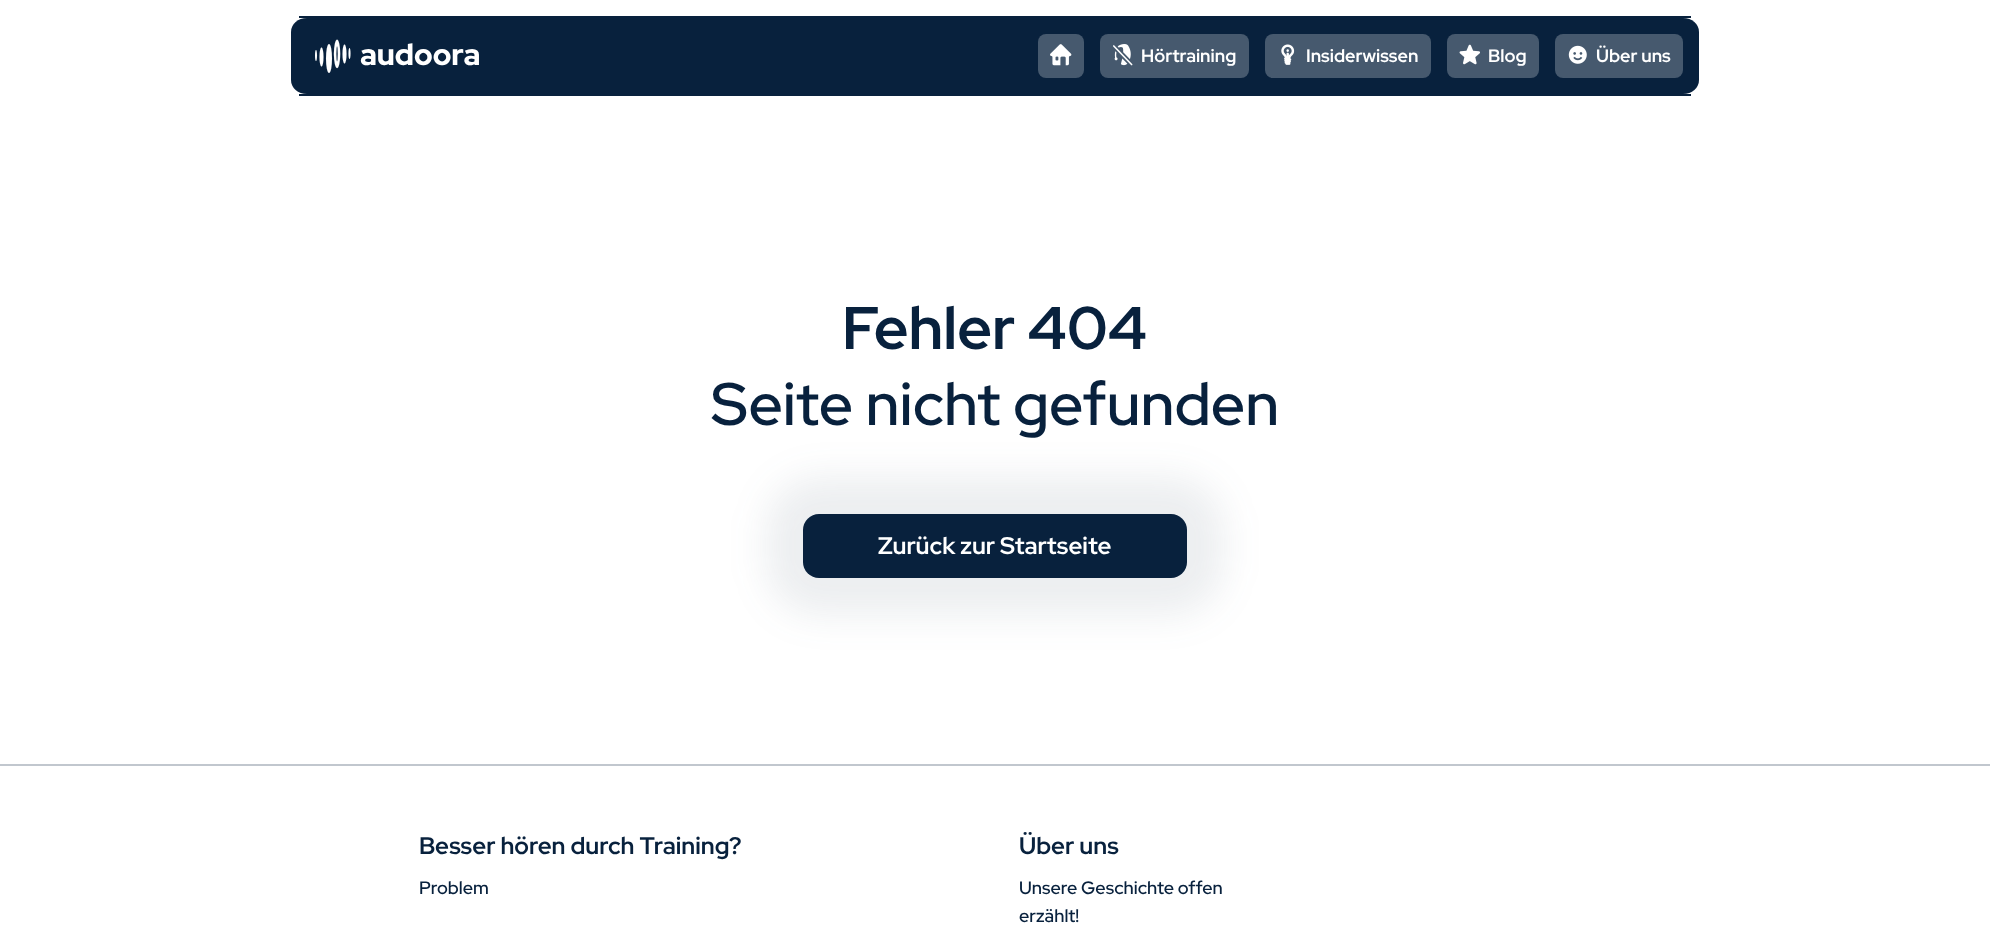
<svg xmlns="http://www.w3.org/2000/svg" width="1990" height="929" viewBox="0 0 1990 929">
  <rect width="100%" height="100%" fill="#fff"/>
  <path d="M307 18H1683C1692 18 1699 24 1699 32V80C1699 88 1692 94 1683 94H307C298 94 291 88 291 80V32C291 24 298 18 307 18Z" fill="#08213d"/>
  <path d="M299 16h1392v2H299z" fill="#08213d"/>
  <path d="M299 94h1392v2H299z" fill="#08213d"/>
  <image x="315" y="39" width="36" height="34" href="img/1.png"/>
  <rect x="1038" y="34" width="46" height="44" rx="8" fill="#46596e"/>
  <image x="1050" y="44" width="22" height="22" href="img/2.png"/>
  <rect x="1100" y="34" width="149" height="44" rx="8" fill="#46596e"/>
  <image x="1113" y="44" width="20" height="22" href="img/3.png"/>
  <rect x="1265" y="34" width="166" height="44" rx="8" fill="#46596e"/>
  <image x="1281" y="44" width="14" height="21" href="img/4.png"/>
  <rect x="1447" y="34" width="92" height="44" rx="8" fill="#46596e"/>
  <image x="1459" y="44" width="21" height="21" href="img/5.png"/>
  <rect x="1555" y="34" width="128" height="44" rx="8" fill="#46596e"/>
  <image x="1568" y="45" width="19" height="19" href="img/6.png"/>
  <rect x="766" y="477" width="458" height="138" rx="53" fill="#46596e1a" filter="blur(18.5px)"/>
  <rect x="803" y="514" width="384" height="64" rx="16" fill="#08213d"/>
  <path d="M0 764h1990v2H0z" fill="#c1c7ce"/>
  <text x="360" y="65" font-family="Red Hat Display" font-size="30" font-weight="800" fill="#fff">audoora</text>
  <g font-family="Red Hat Display" font-size="18" font-weight="600" fill="#fff">
    <text x="1141" y="62">Hörtraining</text>
    <text x="1306" y="62">Insiderwissen</text>
    <text x="1488" y="62">Blog</text>
    <text x="1596" y="62">Über uns</text>
  </g>
  <text x="842" y="349" font-family="Red Hat Display" font-size="60" font-weight="600" fill="#08213d">Fehler 404</text>
  <text x="711" y="425" font-family="Red Hat Display" font-size="60" font-weight="500" fill="#08213d">Seite nicht gefunden</text>
  <text x="878" y="554" font-family="Red Hat Display" font-size="24" font-weight="600" fill="#fff">Zurück zur Startseite</text>
  <text x="419" y="854" font-family="Red Hat Display" font-size="24" font-weight="600" fill="#08213d">Besser hören durch Training?</text>
  <text x="419" y="894" font-family="Red Hat Display" font-size="18" font-weight="500" fill="#08213d">Problem</text>
  <text x="1019" y="854" font-family="Red Hat Display" font-size="24" font-weight="600" fill="#08213d">Über uns</text>
  <g font-family="Red Hat Display" font-size="18" font-weight="500" fill="#08213d">
    <text x="1019" y="894">Unsere Geschichte offen</text>
    <text x="1019" y="922">erzählt!</text>
  </g>
</svg>
